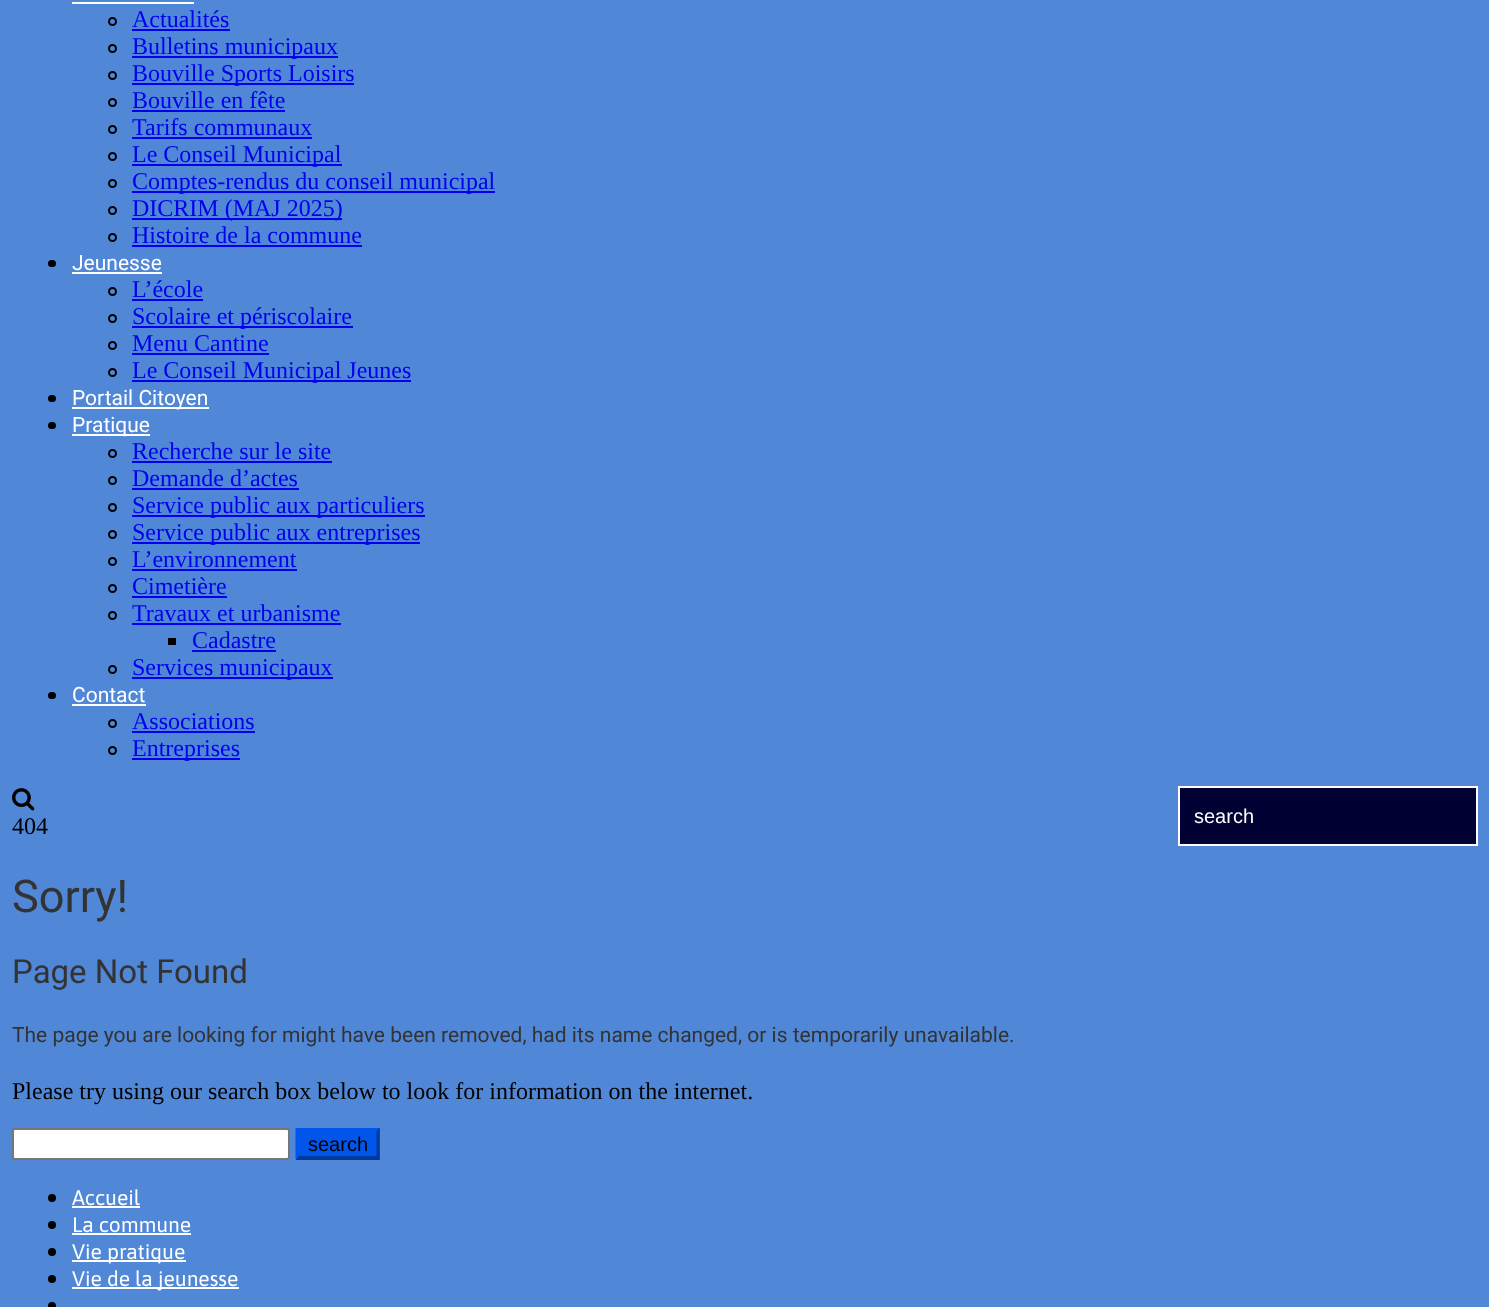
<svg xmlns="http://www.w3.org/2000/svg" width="1489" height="1307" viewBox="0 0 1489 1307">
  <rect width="100%" height="100%" fill="#5087d7"/>
  <path d="M72 2h122v2H72z" fill="#fff"/>
  <circle cx="112.5" cy="21.5" r="3.5" fill="none" stroke="#000" stroke-width="2"/>
  <path d="M132 29h98v2H132z" fill="#00e"/>
  <circle cx="112.5" cy="48.5" r="3.5" fill="none" stroke="#000" stroke-width="2"/>
  <path d="M132 56h206v2H132z" fill="#00e"/>
  <circle cx="112.5" cy="75.5" r="3.5" fill="none" stroke="#000" stroke-width="2"/>
  <path d="M132 83h222v2H132z" fill="#00e"/>
  <circle cx="112.5" cy="102.5" r="3.5" fill="none" stroke="#000" stroke-width="2"/>
  <path d="M132 110h153v2H132z" fill="#00e"/>
  <circle cx="112.5" cy="129.5" r="3.5" fill="none" stroke="#000" stroke-width="2"/>
  <path d="M132 137h180v2H132z" fill="#00e"/>
  <circle cx="112.5" cy="156.5" r="3.5" fill="none" stroke="#000" stroke-width="2"/>
  <path d="M132 164h210v2H132z" fill="#00e"/>
  <circle cx="112.5" cy="183.5" r="3.5" fill="none" stroke="#000" stroke-width="2"/>
  <path d="M132 191h363v2H132z" fill="#00e"/>
  <circle cx="112.5" cy="210.5" r="3.5" fill="none" stroke="#000" stroke-width="2"/>
  <path d="M132 218h210v2H132z" fill="#00e"/>
  <circle cx="112.5" cy="237.5" r="3.5" fill="none" stroke="#000" stroke-width="2"/>
  <path d="M132 245h230v2H132z" fill="#00e"/>
  <rect x="48" y="260" width="8" height="7" rx="3.5" fill="#000"/>
  <path d="M72 272h90v2H72z" fill="#fff"/>
  <circle cx="112.5" cy="291.5" r="3.5" fill="none" stroke="#000" stroke-width="2"/>
  <path d="M132 299h71v2H132z" fill="#00e"/>
  <circle cx="112.5" cy="318.5" r="3.5" fill="none" stroke="#000" stroke-width="2"/>
  <path d="M132 326h221v2H132z" fill="#00e"/>
  <circle cx="112.5" cy="345.5" r="3.5" fill="none" stroke="#000" stroke-width="2"/>
  <path d="M132 353h137v2H132z" fill="#00e"/>
  <circle cx="112.5" cy="372.5" r="3.5" fill="none" stroke="#000" stroke-width="2"/>
  <path d="M132 380h279v2H132z" fill="#00e"/>
  <rect x="48" y="395" width="8" height="7" rx="3.5" fill="#000"/>
  <path d="M72 407h137v2H72z" fill="#fff"/>
  <rect x="48" y="422" width="8" height="7" rx="3.5" fill="#000"/>
  <path d="M72 434h78v2H72z" fill="#fff"/>
  <circle cx="112.5" cy="453.5" r="3.5" fill="none" stroke="#000" stroke-width="2"/>
  <path d="M132 461h200v2H132z" fill="#00e"/>
  <circle cx="112.5" cy="480.5" r="3.5" fill="none" stroke="#000" stroke-width="2"/>
  <path d="M132 488h167v2H132z" fill="#00e"/>
  <circle cx="112.5" cy="507.5" r="3.5" fill="none" stroke="#000" stroke-width="2"/>
  <path d="M132 515h293v2H132z" fill="#00e"/>
  <circle cx="112.5" cy="534.5" r="3.5" fill="none" stroke="#000" stroke-width="2"/>
  <path d="M132 542h288v2H132z" fill="#00e"/>
  <circle cx="112.5" cy="561.5" r="3.5" fill="none" stroke="#000" stroke-width="2"/>
  <path d="M132 569h165v2H132z" fill="#00e"/>
  <circle cx="112.5" cy="588.5" r="3.5" fill="none" stroke="#000" stroke-width="2"/>
  <path d="M132 596h95v2H132z" fill="#00e"/>
  <circle cx="112.5" cy="615.5" r="3.5" fill="none" stroke="#000" stroke-width="2"/>
  <path d="M132 623h209v2H132z" fill="#00e"/>
  <path d="M168 638h8v7H168z" fill="#000"/>
  <path d="M192 650h84v2H192z" fill="#00e"/>
  <circle cx="112.5" cy="669.5" r="3.5" fill="none" stroke="#000" stroke-width="2"/>
  <path d="M132 677h201v2H132z" fill="#00e"/>
  <rect x="48" y="692" width="8" height="7" rx="3.5" fill="#000"/>
  <path d="M72 704h74v2H72z" fill="#fff"/>
  <circle cx="112.5" cy="723.5" r="3.5" fill="none" stroke="#000" stroke-width="2"/>
  <path d="M132 731h123v2H132z" fill="#00e"/>
  <circle cx="112.5" cy="750.5" r="3.5" fill="none" stroke="#000" stroke-width="2"/>
  <path d="M132 758h108v2H132z" fill="#00e"/>
  <image x="12" y="788" width="23" height="23" href="img/1.png"/>
  <path d="M1179 787h298v58H1179z" fill="#003" stroke="#fff" stroke-width="2"/>
  <rect x="13" y="1129" width="276" height="30" rx="2" fill="#fff" stroke="#767676" stroke-width="2"/>
  <path d="M296 1128h84v32H296z" fill="#0056ea"/>
  <path d="M379.5 1128V1159.5L376.5 1156.5V1131Z" fill="#00399c"/>
  <path d="M380 1160H296L298 1156H376Z" fill="#00399c"/>
  <path d="M295.5 1159.5V1128L298.5 1131V1156.5Z" fill="#0056ea"/>
  <circle cx="52" cy="1198" r="4" fill="#000"/>
  <path d="M72 1206h68v2H72z" fill="#fff"/>
  <circle cx="52" cy="1225" r="4" fill="#000"/>
  <path d="M72 1233h119v2H72z" fill="#fff"/>
  <circle cx="52" cy="1252" r="4" fill="#000"/>
  <path d="M72 1260h114v2H72z" fill="#fff"/>
  <circle cx="52" cy="1279" r="4" fill="#000"/>
  <path d="M72 1287h167v2H72z" fill="#fff"/>
  <circle cx="52" cy="1306" r="4" fill="#000"/>
  <g font-family="Liberation Serif" font-size="24" fill="#00e">
    <text x="132" y="27">Actualités</text>
    <text x="132" y="54">Bulletins municipaux</text>
    <text x="132" y="81">Bouville Sports Loisirs</text>
    <text x="132" y="108">Bouville en fête</text>
    <text x="132" y="135">Tarifs communaux</text>
    <text x="132" y="162">Le Conseil Municipal</text>
    <text x="132" y="189">Comptes-rendus du conseil municipal</text>
    <text x="132" y="216">DICRIM (MAJ 2025)</text>
    <text x="132" y="243">Histoire de la commune</text>
  </g>
  <text x="72" y="270" font-family="Roboto" font-size="21" fill="#fff">Jeunesse</text>
  <g font-family="Liberation Serif" font-size="24" fill="#00e">
    <text x="132" y="297">L’école</text>
    <text x="132" y="324">Scolaire et périscolaire</text>
    <text x="132" y="351">Menu Cantine</text>
    <text x="132" y="378">Le Conseil Municipal Jeunes</text>
  </g>
  <g font-family="Roboto" font-size="21" fill="#fff">
    <text x="72" y="405">Portail Citoyen</text>
    <text x="72" y="432">Pratique</text>
  </g>
  <g font-family="Liberation Serif" font-size="24" fill="#00e">
    <text x="132" y="459">Recherche sur le site</text>
    <text x="132" y="486">Demande d’actes</text>
    <text x="132" y="513">Service public aux particuliers</text>
    <text x="132" y="540">Service public aux entreprises</text>
    <text x="132" y="567">L’environnement</text>
    <text x="132" y="594">Cimetière</text>
    <text x="132" y="621">Travaux et urbanisme</text>
    <text x="192" y="648">Cadastre</text>
    <text x="132" y="675">Services municipaux</text>
  </g>
  <text x="72" y="702" font-family="Roboto" font-size="21" fill="#fff">Contact</text>
  <g font-family="Liberation Serif" font-size="24" fill="#00e">
    <text x="132" y="729">Associations</text>
    <text x="132" y="756">Entreprises</text>
  </g>
  <text x="1194" y="823" font-family="Liberation Sans" font-size="20" fill="#fff">search</text>
  <text x="12" y="834" font-family="Liberation Serif" font-size="24" fill="#000">404</text>
  <text x="12" y="912" font-family="Roboto" font-size="45" fill="#333">Sorry!</text>
  <text x="12" y="983" font-family="Roboto" font-size="33" fill="#333">Page Not Found</text>
  <text x="12" y="1042" font-family="Roboto" font-size="21" fill="#333">The page you are looking for might have been removed, had its name changed, or is temporarily unavailable.</text>
  <text x="12" y="1099" font-family="Liberation Serif" font-size="24" fill="#000">Please try using our search box below to look for information on the internet.</text>
  <text x="308" y="1151" font-family="Liberation Sans" font-size="20" fill="#000">search</text>
  <g font-family="Asap" font-size="21" fill="#fff">
    <text x="72" y="1205">Accueil</text>
    <text x="72" y="1232">La commune</text>
    <text x="72" y="1259">Vie pratique</text>
    <text x="72" y="1286">Vie de la jeunesse</text>
  </g>
</svg>
